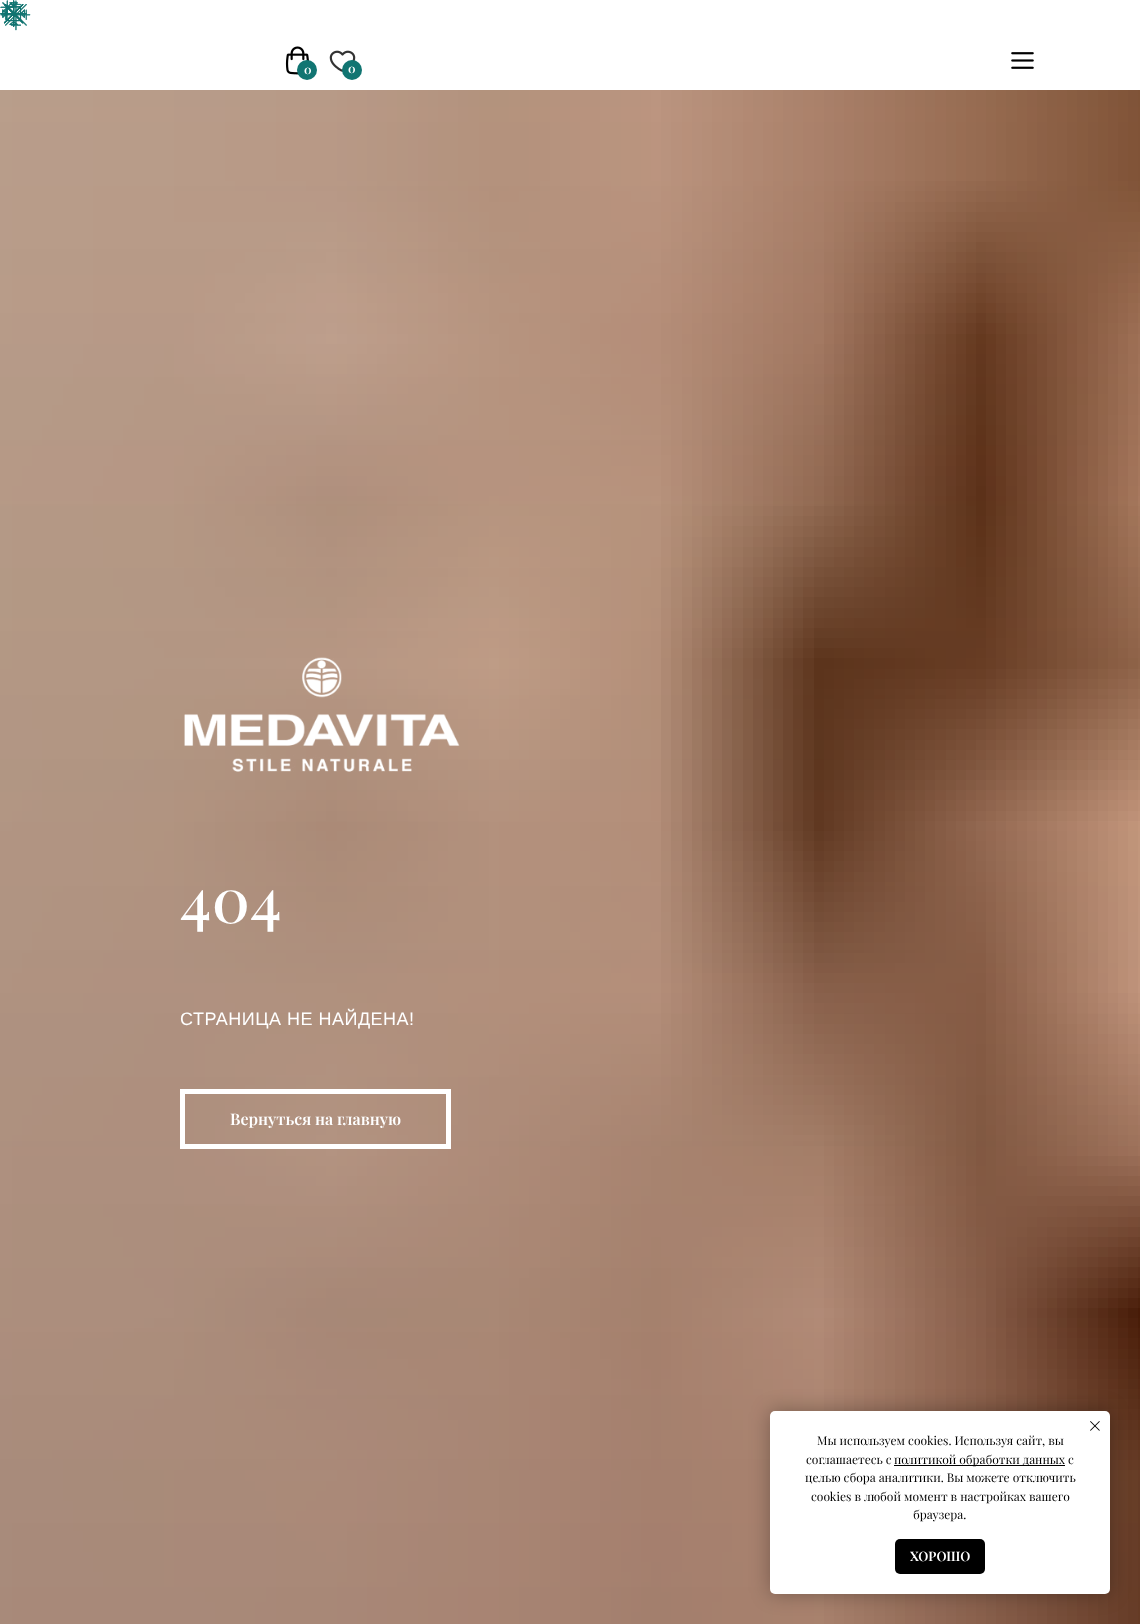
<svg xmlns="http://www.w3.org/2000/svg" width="1140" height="1624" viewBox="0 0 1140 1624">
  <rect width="100%" height="100%" fill="#fff"/>
  <image x="0" y="0" width="15" height="15" href="img/1.png"/>
  <image x="0" y="0" width="27" height="27" href="img/2.png"/>
  <image x="0" y="0" width="14" height="14" href="img/3.png"/>
  <image x="1" y="4" width="29" height="22" href="img/38.png"/>
  <image x="0" y="0" width="27" height="27" href="img/4.png"/>
  <image x="0" y="0" width="27" height="27" href="img/5.png"/>
  <image x="0" y="0" width="31" height="30" href="img/6.png"/>
  <image x="0" y="0" width="14" height="14" href="img/7.png"/>
  <image x="0" y="0" width="15" height="15" href="img/8.png"/>
  <image x="1" y="1" width="24" height="24" href="img/34.png"/>
  <image x="4" y="4" width="6" height="6" href="img/39.png"/>
  <image x="0" y="0" width="13" height="13" href="img/9.png"/>
  <image x="1" y="1" width="29" height="29" href="img/35.png"/>
  <image x="0" y="0" width="27" height="27" href="img/10.png"/>
  <image x="0" y="0" width="27" height="27" href="img/11.png"/>
  <image x="0" y="0" width="27" height="27" href="img/12.png"/>
  <image x="0" y="0" width="27" height="27" href="img/13.png"/>
  <image x="0" y="0" width="27" height="27" href="img/14.png"/>
  <image x="0" y="0" width="27" height="27" href="img/15.png"/>
  <image x="6" y="6" width="15" height="15" href="img/43.png"/>
  <image x="0" y="0" width="27" height="27" href="img/16.png"/>
  <image x="0" y="0" width="31" height="31" href="img/17.png"/>
  <image x="0" y="0" width="31" height="31" href="img/18.png"/>
  <image x="0" y="0" width="24" height="27" href="img/19.png"/>
  <image x="0" y="0" width="13" height="13" href="img/20.png"/>
  <image x="0" y="0" width="25" height="25" href="img/21.png"/>
  <image x="0" y="0" width="31" height="31" href="img/22.png"/>
  <image x="0" y="0" width="30" height="30" href="img/23.png"/>
  <image x="0" y="0" width="25" height="27" href="img/24.png"/>
  <image x="0" y="0" width="25" height="25" href="img/25.png"/>
  <image x="4" y="4" width="20" height="20" href="img/40.png"/>
  <image x="0" y="0" width="10" height="10" href="img/26.png"/>
  <image x="0" y="0" width="24" height="27" href="img/27.png"/>
  <image x="4" y="7" width="15" height="17" href="img/44.png"/>
  <image x="0" y="0" width="10" height="10" href="img/28.png"/>
  <image x="7" y="7" width="11" height="11" href="img/45.png"/>
  <image x="0" y="0" width="11" height="13" href="img/29.png"/>
  <image x="0" y="0" width="13" height="13" href="img/30.png"/>
  <image x="5" y="1" width="21" height="29" href="img/36.png"/>
  <image x="0" y="0" width="24" height="27" href="img/31.png"/>
  <image x="0" y="0" width="31" height="31" href="img/32.png"/>
  <image x="4" y="4" width="20" height="20" href="img/41.png"/>
  <image x="0" y="0" width="25" height="27" href="img/33.png"/>
  <image x="4" y="4" width="20" height="20" href="img/42.png"/>
  <image x="7" y="7" width="11" height="11" href="img/46.png"/>
  <image x="2" y="2" width="23" height="23" href="img/37.png"/>
  <image x="285" y="46" width="24" height="29" href="img/47.png"/>
  <image x="329" y="50" width="27" height="22" href="img/48.png"/>
  <image x="1011" y="52" width="23" height="17" href="img/49.png"/>
  <circle cx="307" cy="70" r="10" fill="#117572"/>
  <circle cx="352" cy="70" r="10" fill="#117572"/>
  <image x="0" y="90" width="1140" height="1534" href="img/50.png"/>
  <image x="184" y="657" width="276" height="115" href="img/51.png"/>
  <path d="M182.5 1091.5H448.5V1146.5H182.5Z" fill="none" stroke="#fff" stroke-width="5"/>
  <rect x="770" y="1411" width="340" height="183" rx="5" fill="#0000004d" filter="blur(10px)"/>
  <rect x="770" y="1411" width="340" height="183" rx="5" fill="#fff"/>
  <image x="1090" y="1421" width="10" height="10" href="img/52.png"/>
  <path d="M894 1465h171v1H894z" fill="#000"/>
  <rect x="895" y="1539" width="90" height="35" rx="5" fill="#000"/>
  <g font-family="Playfair Display" font-size="12" font-weight="600" fill="#fff">
    <text x="304" y="74">0</text>
    <text x="348" y="73">0</text>
  </g>
  <text x="180" y="923" font-family="Playfair Display" font-size="62" font-weight="500" letter-spacing="0.5" fill="#fff">404</text>
  <text x="180" y="1025" font-family="Liberation Sans" font-size="18" letter-spacing="0.5" fill="#fff">СТРАНИЦА НЕ НАЙДЕНА!</text>
  <text x="230" y="1125" font-family="Playfair Display" font-size="16" font-weight="600" fill="#fff">Вернуться на главную</text>
  <g font-family="Playfair Display" font-size="12" fill="#000">
    <text x="817" y="1445">Мы используем cookies. Используя сайт, вы</text>
    <text x="806" y="1464">соглашаетесь с</text>
    <text x="894" y="1464">политикой обработки данных с</text>
    <text x="805" y="1482">целью сбора аналитики. Вы можете отключить</text>
    <text x="811" y="1501">cookies в любой момент в настройках вашего</text>
    <text x="913" y="1519">браузера.</text>
  </g>
  <text x="910" y="1561" font-family="Playfair Display" font-size="13" font-weight="600" fill="#fff">ХОРОШО</text>
</svg>
